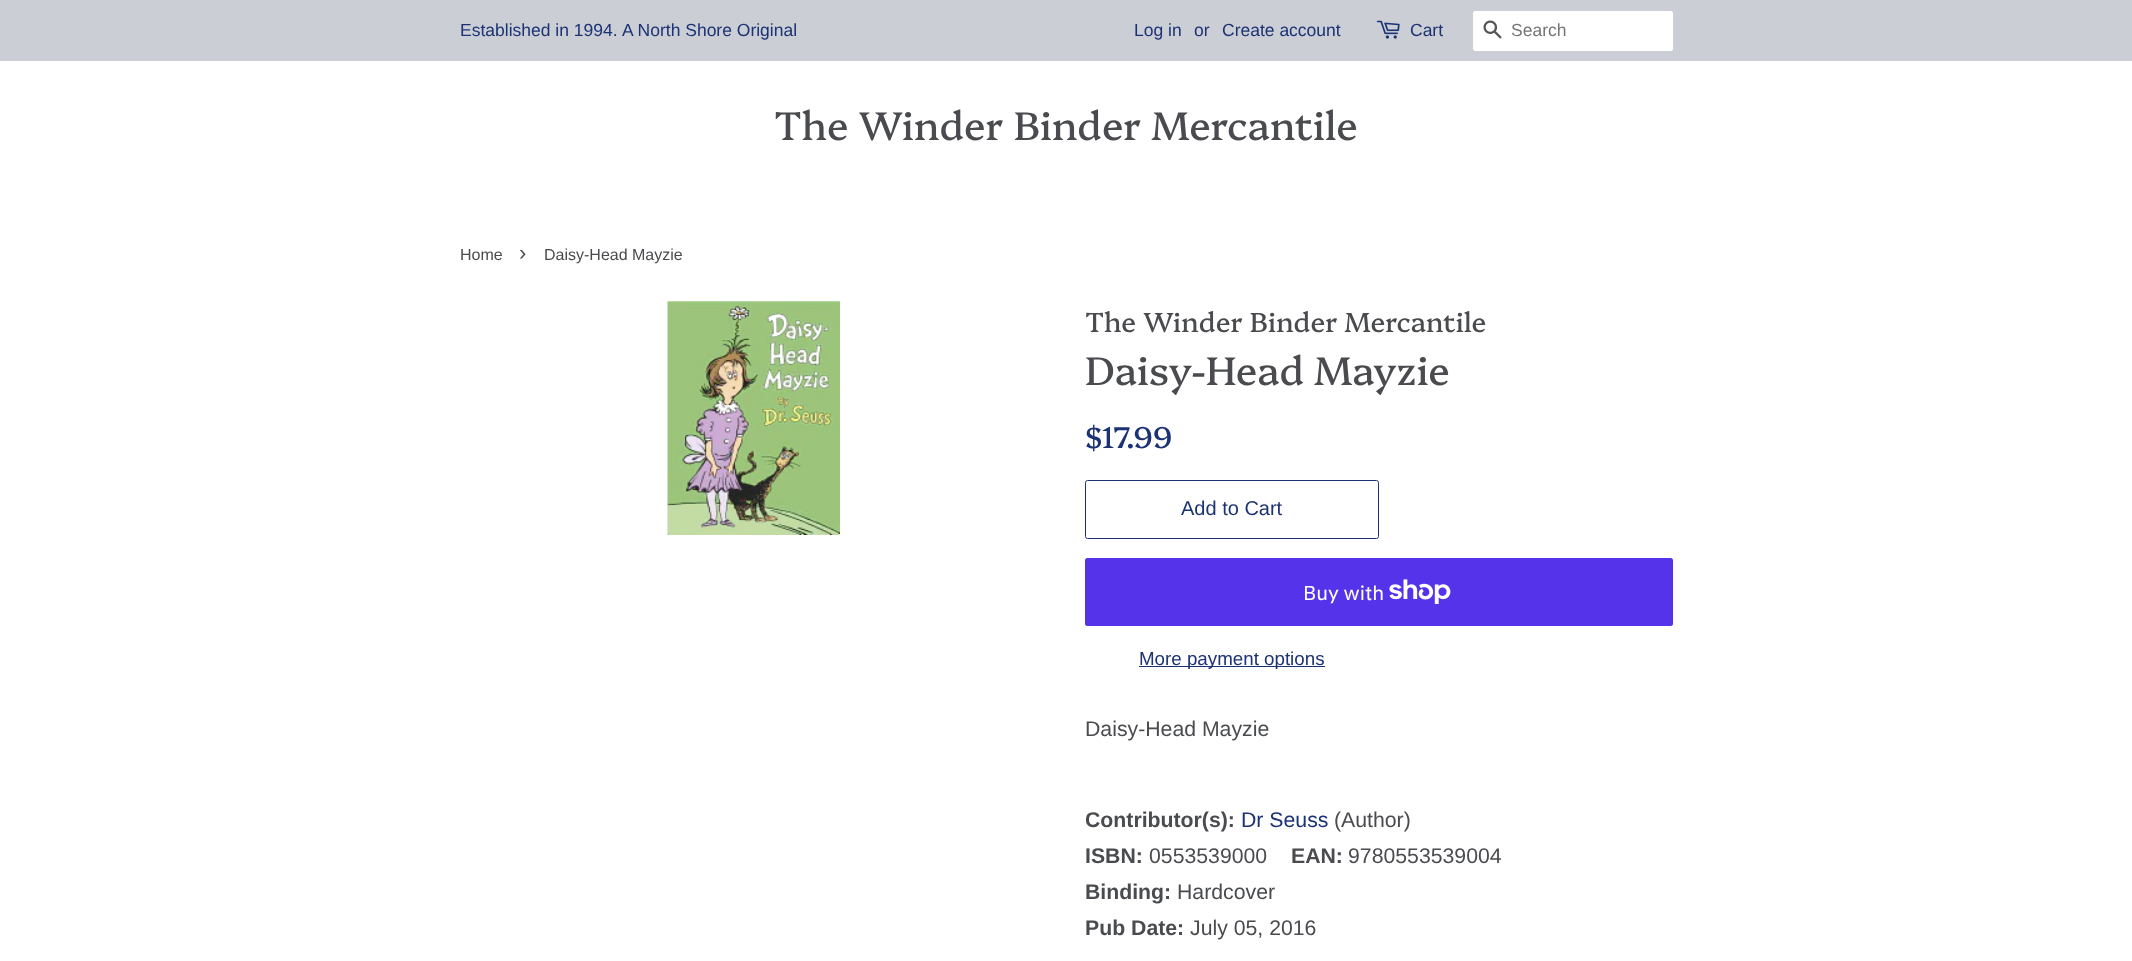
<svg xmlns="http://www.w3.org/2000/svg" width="2132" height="961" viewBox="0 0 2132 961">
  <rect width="100%" height="100%" fill="#fff"/>
  <path d="M0 0h2132v61H0z" fill="#cbced5"/>
  <image x="1376" y="20" width="24" height="19" href="img/1.png"/>
  <rect x="1473" y="11" width="200" height="40" rx="2.5" fill="#fff"/>
  <image x="1483" y="20" width="19" height="19" href="img/2.png"/>
  <image x="667" y="301" width="173" height="234" href="img/3.png"/>
  <rect x="1085.5" y="480.5" width="293" height="58" rx="2" fill="none" stroke="#1b3274"/>
  <rect x="1085" y="558" width="588" height="68" rx="2.5" fill="#5433eb"/>
  <image x="1389" y="579" width="62" height="25" href="img/4.png"/>
  <path d="M1139 666h186v1H1139z" fill="#1b3274"/>
  <g font-family="Liberation Sans" font-size="17.5" fill="#1b3274">
    <text x="460" y="36">Established in 1994.</text>
    <text x="622" y="36">A North Shore Original</text>
    <text x="1134" y="36">Log in</text>
    <text x="1194" y="36">or</text>
    <text x="1222" y="36">Create account</text>
    <text x="1410" y="36">Cart</text>
  </g>
  <text x="1511" y="36" font-family="Liberation Sans" font-size="17.5" fill="#757575">Search</text>
  <text x="774" y="140" font-family="Platypi" font-size="40" fill="#494b4e">The Winder Binder Mercantile</text>
  <text x="460" y="260" font-family="Liberation Sans" font-size="16" fill="#494b4e">Home</text>
  <text x="519" y="260" font-family="Liberation Sans" font-size="22" fill="#494b4e">›</text>
  <text x="544" y="260" font-family="Liberation Sans" font-size="16" fill="#494b4e">Daisy-Head Mayzie</text>
  <text x="1085" y="332" font-family="Platypi" font-size="27.5" fill="#494b4e">The Winder Binder Mercantile</text>
  <text x="1085" y="385" font-family="Platypi" font-size="40" fill="#494b4e">Daisy-Head Mayzie</text>
  <text x="1085" y="448" font-family="Platypi" font-size="30" fill="#1b3274">$17.99</text>
  <text x="1181" y="515" font-family="Liberation Sans" font-size="20" fill="#1b3274">Add to Cart</text>
  <text x="1303" y="600" font-family="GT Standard" font-size="20" fill="#fff">Buy with</text>
  <text x="1139" y="665" font-family="Liberation Sans" font-size="18.75" fill="#1b3274">More payment options</text>
  <text x="1085" y="736" font-family="Liberation Sans" font-size="21.25" fill="#494b4e">Daisy-Head Mayzie</text>
  <text x="1085" y="827" font-family="Liberation Sans" font-size="21.25" font-weight="bold" fill="#494b4e">Contributor(s):</text>
  <text x="1241" y="827" font-family="Liberation Sans" font-size="21.25" fill="#1b3274">Dr Seuss</text>
  <text x="1334" y="827" font-family="Liberation Sans" font-size="21.25" fill="#494b4e">(Author)</text>
  <text x="1085" y="863" font-family="Liberation Sans" font-size="21.25" font-weight="bold" fill="#494b4e">ISBN:</text>
  <text x="1149" y="863" font-family="Liberation Sans" font-size="21.25" fill="#494b4e">0553539000</text>
  <text x="1291" y="863" font-family="Liberation Sans" font-size="21.25" font-weight="bold" fill="#494b4e">EAN:</text>
  <text x="1348" y="863" font-family="Liberation Sans" font-size="21.25" fill="#494b4e">9780553539004</text>
  <text x="1085" y="899" font-family="Liberation Sans" font-size="21.25" font-weight="bold" fill="#494b4e">Binding:</text>
  <text x="1177" y="899" font-family="Liberation Sans" font-size="21.25" fill="#494b4e">Hardcover</text>
  <text x="1085" y="935" font-family="Liberation Sans" font-size="21.25" font-weight="bold" fill="#494b4e">Pub Date:</text>
  <text x="1190" y="935" font-family="Liberation Sans" font-size="21.25" fill="#494b4e">July 05, 2016</text>
</svg>
